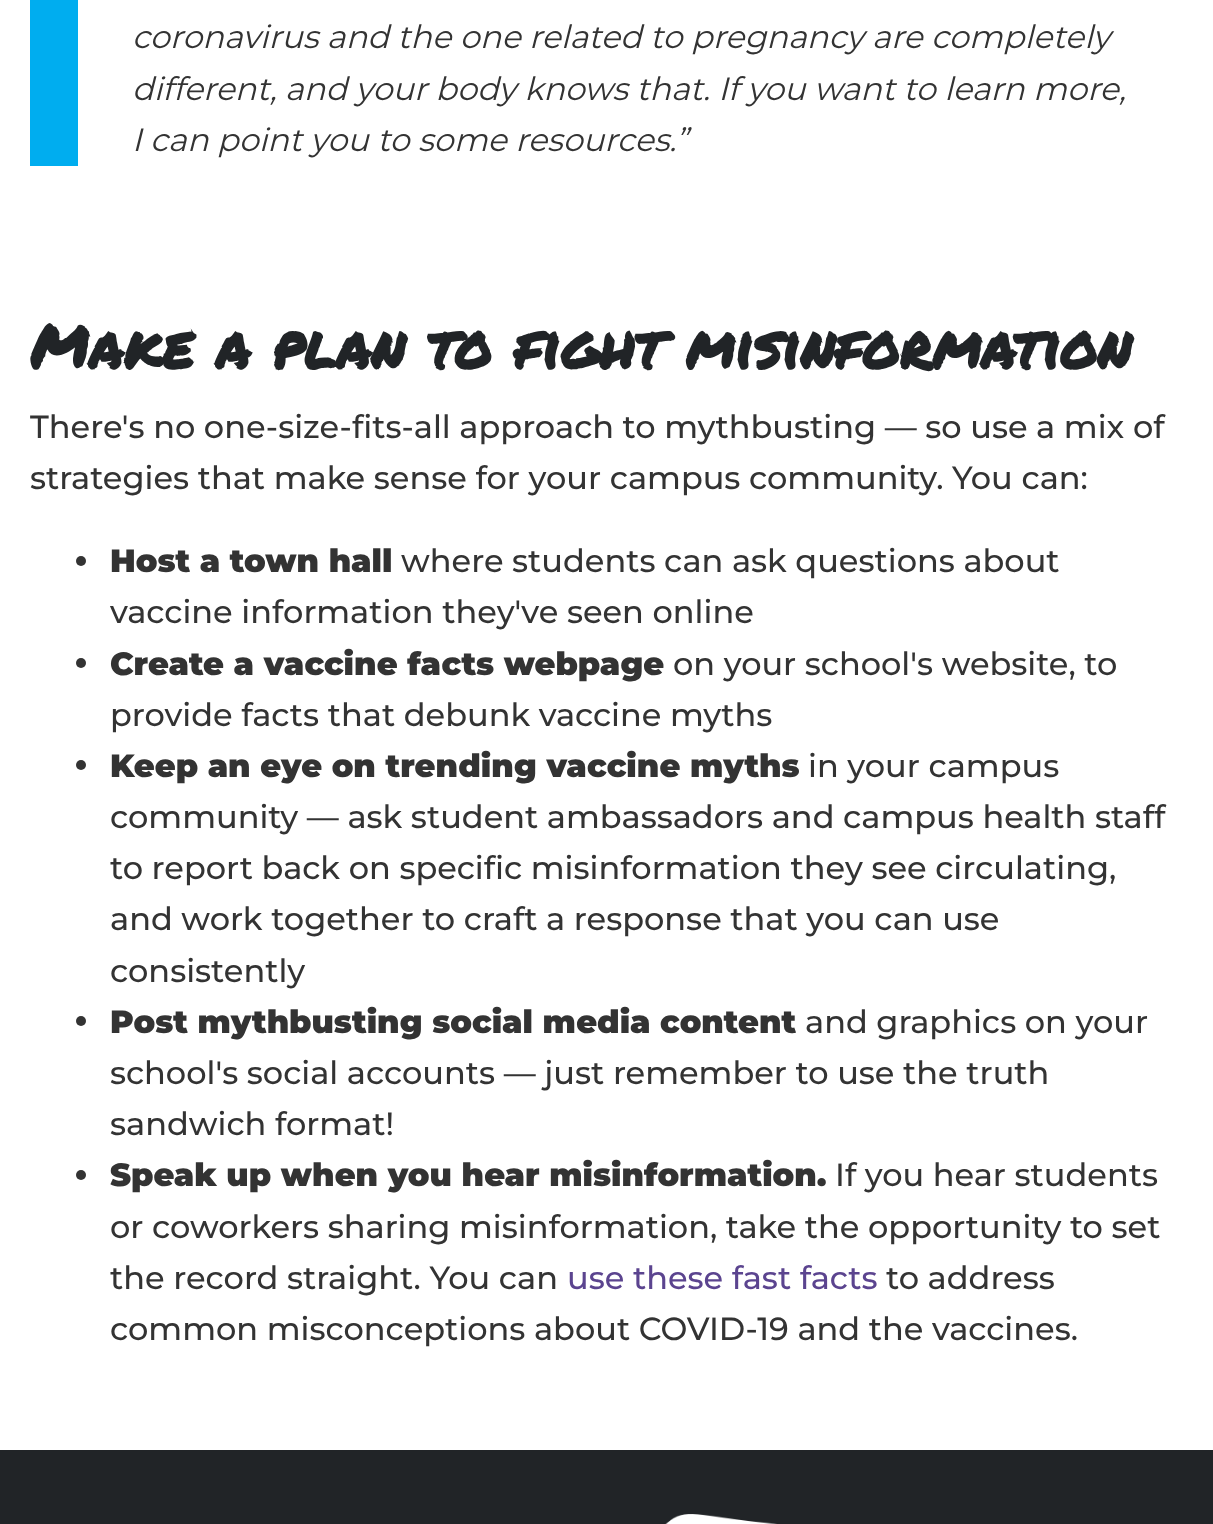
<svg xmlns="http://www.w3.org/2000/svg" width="1213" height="1524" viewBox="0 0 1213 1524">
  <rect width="100%" height="100%" fill="#fff"/>
  <path d="M30 0h48v166H30z" fill="#00adef"/>
  <circle cx="81" cy="561" r="5" fill="#333"/>
  <circle cx="81" cy="663" r="5" fill="#333"/>
  <circle cx="81" cy="765" r="5" fill="#333"/>
  <circle cx="81" cy="1021" r="5" fill="#333"/>
  <circle cx="81" cy="1175" r="5" fill="#333"/>
  <path d="M0 1450h1213v74H0z" fill="#212427"/>
  <image x="665" y="1514" width="112" height="10" href="img/1.png"/>
  <g font-family="Montserrat" font-size="32" font-style="italic" fill="#333">
    <text x="132" y="48">coronavirus and the one related to pregnancy are completely</text>
    <text x="132" y="100">different, and your body knows that. If you want to learn more,</text>
    <text x="132" y="151">I can point you to some resources.”</text>
  </g>
  <text x="30" y="369" font-family="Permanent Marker" font-size="60" font-weight="bold" fill="#212427">Make a plan to fight misinformation</text>
  <g font-family="Montserrat" font-size="32" font-weight="500" fill="#333">
    <text x="30" y="438">There's no one-size-fits-all approach to mythbusting — so use a mix of</text>
    <text x="30" y="489">strategies that make sense for your campus community. You can:</text>
  </g>
  <text x="110" y="572" font-family="Montserrat" font-size="32" font-weight="900" fill="#333">Host a town hall</text>
  <g font-family="Montserrat" font-size="32" font-weight="500" fill="#333">
    <text x="401" y="572">where students can ask questions about</text>
    <text x="110" y="623">vaccine information they've seen online</text>
  </g>
  <text x="110" y="675" font-family="Montserrat" font-size="32" font-weight="900" fill="#333">Create a vaccine facts webpage</text>
  <g font-family="Montserrat" font-size="32" font-weight="500" fill="#333">
    <text x="673" y="675">on your school's website, to</text>
    <text x="110" y="726">provide facts that debunk vaccine myths</text>
  </g>
  <text x="110" y="777" font-family="Montserrat" font-size="32" font-weight="900" fill="#333">Keep an eye on trending vaccine myths</text>
  <g font-family="Montserrat" font-size="32" font-weight="500" fill="#333">
    <text x="808" y="777">in your campus</text>
    <text x="110" y="828">community — ask student ambassadors and campus health staff</text>
    <text x="110" y="879">to report back on specific misinformation they see circulating,</text>
    <text x="110" y="930">and work together to craft a response that you can use</text>
    <text x="110" y="982">consistently</text>
  </g>
  <text x="110" y="1033" font-family="Montserrat" font-size="32" font-weight="900" fill="#333">Post mythbusting social media content</text>
  <g font-family="Montserrat" font-size="32" font-weight="500" fill="#333">
    <text x="805" y="1033">and graphics on your</text>
    <text x="110" y="1084">school's social accounts — just remember to use the truth</text>
    <text x="110" y="1135">sandwich format!</text>
  </g>
  <text x="110" y="1186" font-family="Montserrat" font-size="32" font-weight="900" fill="#333">Speak up when you hear misinformation.</text>
  <g font-family="Montserrat" font-size="32" font-weight="500" fill="#333">
    <text x="835" y="1186">If you hear students</text>
    <text x="110" y="1238">or coworkers sharing misinformation, take the opportunity to set</text>
    <text x="110" y="1289">the record straight. You can</text>
  </g>
  <text x="567" y="1289" font-family="Montserrat" font-size="32" font-weight="500" fill="#5b448f">use these fast facts</text>
  <g font-family="Montserrat" font-size="32" font-weight="500" fill="#333">
    <text x="886" y="1289">to address</text>
    <text x="110" y="1340">common misconceptions about COVID-19 and the vaccines.</text>
  </g>
</svg>
